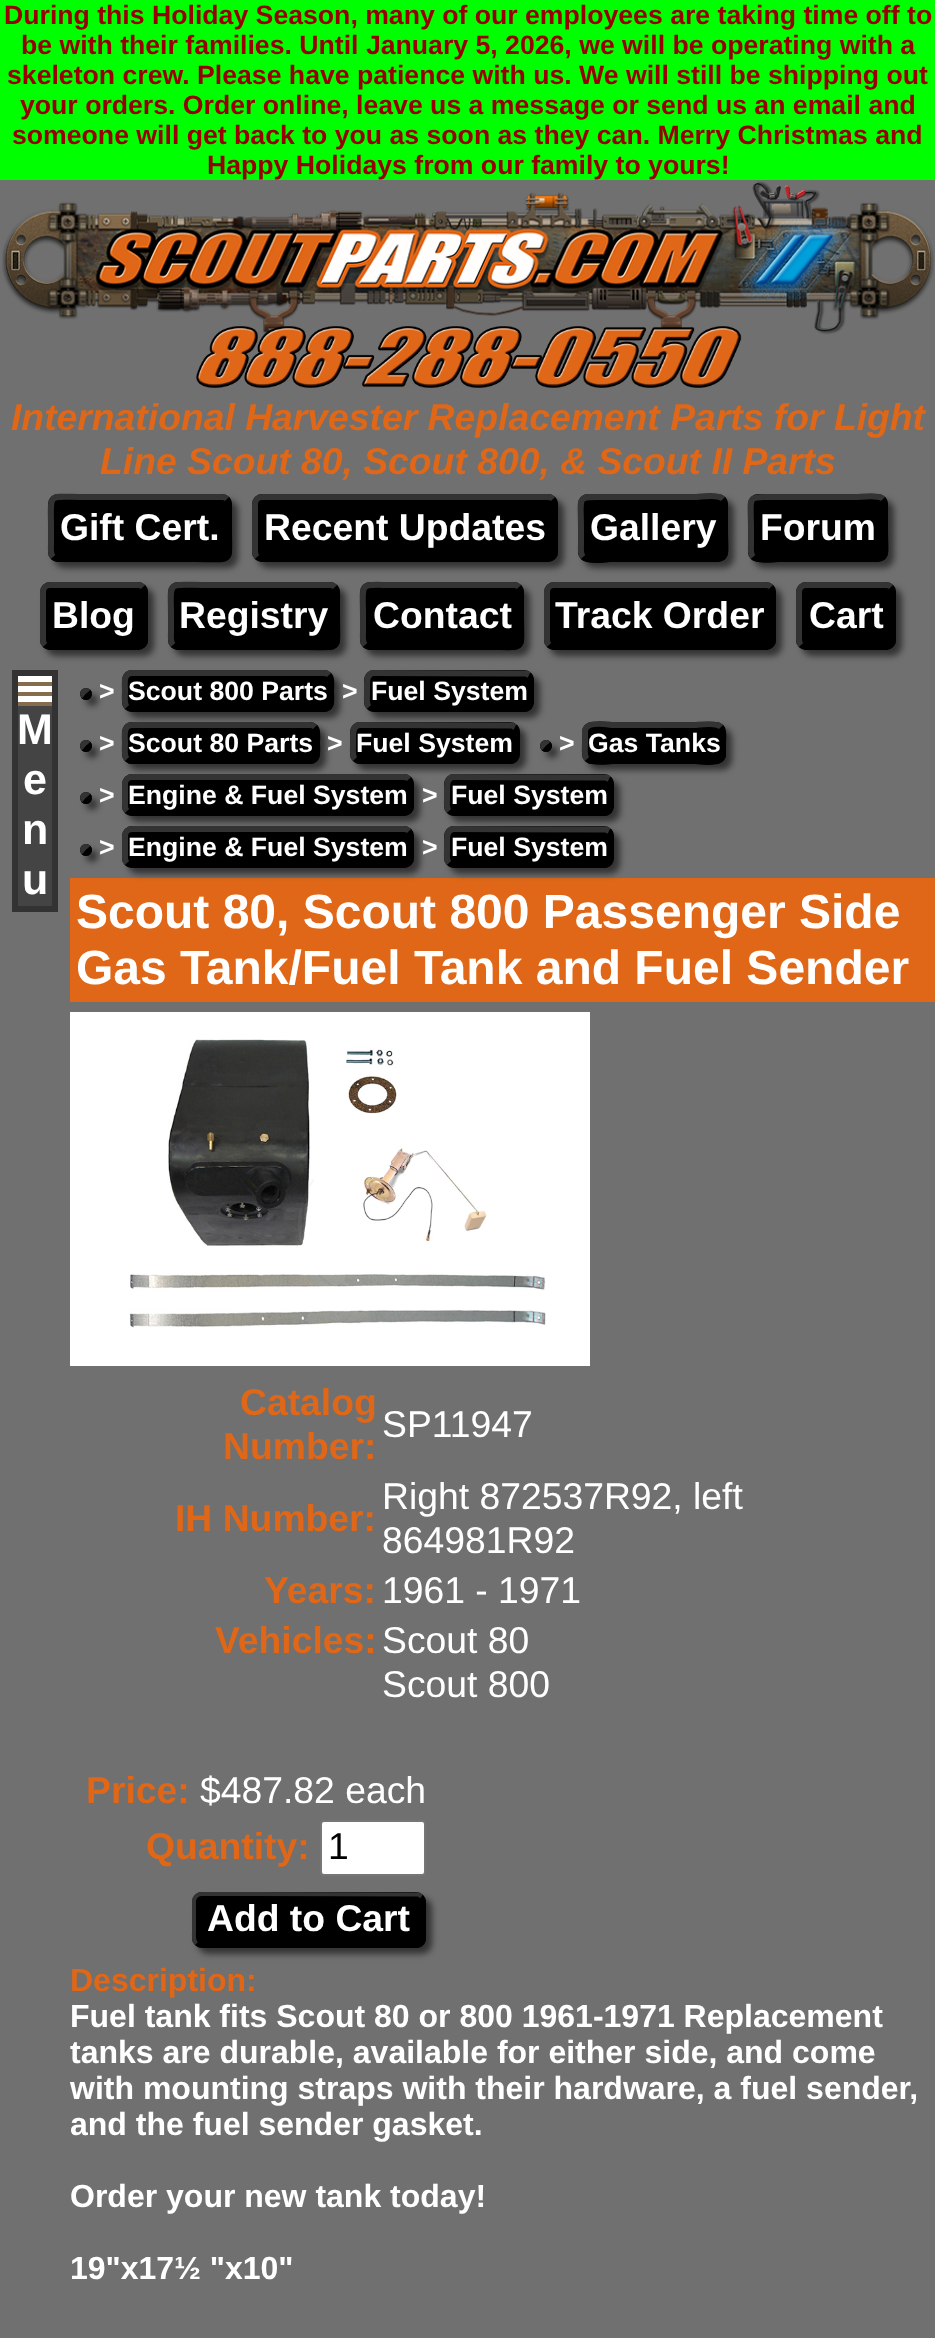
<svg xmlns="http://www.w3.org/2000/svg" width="935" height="2338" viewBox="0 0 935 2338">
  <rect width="100%" height="100%" fill="#707070"/>
  <path d="M0 0h935v180H0z" fill="#0f0"/>
  <image x="2" y="181" width="932" height="154" href="img/1.png"/>
  <image x="196" y="326" width="546" height="62" href="img/2.png"/>
  <rect x="54" y="500" width="184" height="68" rx="10" fill="#333" filter="blur(3px)"/>
  <rect x="48" y="494" width="184" height="68" rx="10" fill="#000"/>
  <path d="M227 499C230 502.5 229 508 229 512V528C229 565 234 559 194.5 559H58C56 559 54.5 558.5 53 557" fill="none" stroke="#000" stroke-width="6"/>
  <path d="M53 557C50 553.5 51 548 51 544V528C51 491 46 497 85.5 497H222C224 497 225.5 497.5 227 499" fill="none" stroke="#333" stroke-width="6"/>
  <rect x="258" y="500" width="306" height="68" rx="10" fill="#333" filter="blur(3px)"/>
  <rect x="252" y="494" width="306" height="68" rx="10" fill="#000"/>
  <path d="M553 499C554.5 500.5 555 502 555 504V552C555 554 554.5 555.5 553 557C551.5 558.5 550 559 548 559H262C260 559 258.5 558.5 257 557" fill="none" stroke="#000" stroke-width="6"/>
  <path d="M257 557C255.5 555.5 255 554 255 552V504C255 502 255.5 500.5 257 499C258.5 497.5 260 497 262 497H548C550 497 551.5 497.5 553 499" fill="none" stroke="#333" stroke-width="6"/>
  <rect x="584" y="500" width="150" height="68" rx="10" fill="#333" filter="blur(3px)"/>
  <rect x="578" y="494" width="150" height="68" rx="10" fill="#000"/>
  <path d="M723 499C726 502.5 725 508 725 512V528C725 562.5 731 559 696.5 559H609.5C608 559 588.5 562.5 583 557" fill="none" stroke="#000" stroke-width="6"/>
  <path d="M583 557C580 553.5 581 548 581 544V528C581 493.5 575 497 609.5 497H696.5C698 497 717.5 493.5 723 499" fill="none" stroke="#333" stroke-width="6"/>
  <rect x="754" y="500" width="140" height="68" rx="10" fill="#333" filter="blur(3px)"/>
  <rect x="748" y="494" width="140" height="68" rx="10" fill="#000"/>
  <path d="M883 499C886 502.5 885 508 885 512V528C885 562 891 559 858 559H778C775.5 559 758 562 753 557" fill="none" stroke="#000" stroke-width="6"/>
  <path d="M753 557C750 553.5 751 548 751 544V528C751 494 745 497 778 497H858C860.5 497 878 494 883 499" fill="none" stroke="#333" stroke-width="6"/>
  <rect x="46" y="588" width="108" height="68" rx="10" fill="#333" filter="blur(3px)"/>
  <rect x="40" y="582" width="108" height="68" rx="10" fill="#000"/>
  <path d="M143 587C144.5 588.5 145 590 145 592V640C145 642 144.5 643.5 143 645C141.5 646.5 140 647 138 647H50C48 647 46.5 646.5 45 645" fill="none" stroke="#000" stroke-width="6"/>
  <path d="M45 645C43.5 643.5 43 642 43 640V592C43 590 43.5 588.5 45 587C46.5 585.5 48 585 50 585H138C140 585 141.5 585.5 143 587" fill="none" stroke="#333" stroke-width="6"/>
  <rect x="174" y="588" width="172" height="68" rx="10" fill="#333" filter="blur(3px)"/>
  <rect x="168" y="582" width="172" height="68" rx="10" fill="#000"/>
  <path d="M335 587C338 590.5 337 596 337 600V616C337 652 342.5 647 304.5 647H178C176 647 174.5 646.5 173 645" fill="none" stroke="#000" stroke-width="6"/>
  <path d="M173 645C170 641.5 171 636 171 632V616C171 580 165.5 585 203.5 585H330C332 585 333.5 585.5 335 587" fill="none" stroke="#333" stroke-width="6"/>
  <rect x="366" y="588" width="164" height="68" rx="10" fill="#333" filter="blur(3px)"/>
  <rect x="360" y="582" width="164" height="68" rx="10" fill="#000"/>
  <path d="M519 587C522 590.5 521 596 521 600V616C521 651.5 526.5 647 490 647H370C368 647 366.5 646.5 365 645" fill="none" stroke="#000" stroke-width="6"/>
  <path d="M365 645C362 641.5 363 636 363 632V616C363 580.5 357.5 585 394 585H514C516 585 517.5 585.5 519 587" fill="none" stroke="#333" stroke-width="6"/>
  <rect x="550" y="588" width="232" height="68" rx="10" fill="#333" filter="blur(3px)"/>
  <rect x="544" y="582" width="232" height="68" rx="10" fill="#000"/>
  <path d="M771 587C772.5 588.5 773 590 773 592V640C773 642 772.5 643.5 771 645C769.5 646.5 768 647 766 647H554C552 647 550.5 646.5 549 645" fill="none" stroke="#000" stroke-width="6"/>
  <path d="M549 645C547.5 643.5 547 642 547 640V592C547 590 547.5 588.5 549 587C550.5 585.5 552 585 554 585H766C768 585 769.5 585.5 771 587" fill="none" stroke="#333" stroke-width="6"/>
  <rect x="802" y="588" width="100" height="68" rx="10" fill="#333" filter="blur(3px)"/>
  <rect x="796" y="582" width="100" height="68" rx="10" fill="#000"/>
  <path d="M891 587C892.5 588.5 893 590 893 592V640C893 642 892.5 643.5 891 645C889.5 646.5 888 647 886 647H806C804 647 802.5 646.5 801 645" fill="none" stroke="#000" stroke-width="6"/>
  <path d="M801 645C799.5 643.5 799 642 799 640V592C799 590 799.5 588.5 801 587C802.5 585.5 804 585 806 585H886C888 585 889.5 585.5 891 587" fill="none" stroke="#333" stroke-width="6"/>
  <path d="M15 673h40v236H15z" fill="none" stroke="#333" stroke-width="6"/>
  <path d="M18 676h34v6H18z" fill="#fff"/>
  <path d="M18 682h34v4H18z" fill="#846c4c"/>
  <path d="M18 686h34v6H18z" fill="#fff"/>
  <path d="M18 692h34v4H18z" fill="#846c4c"/>
  <path d="M18 696h34v6H18z" fill="#fff"/>
  <path d="M18 702h34v4H18z" fill="#846c4c"/>
  <path d="M18 706h34v200H18z" fill="#444"/>
  <rect x="86" y="694" width="12" height="12" rx="6" fill="#333" filter="blur(3px)"/>
  <circle cx="86" cy="694" r="6" fill="#000"/>
  <path d="M88 692C91 694.5 86.5 699 84 696" fill="none" stroke="#000" stroke-width="6"/>
  <path d="M84 696C81 693.5 85.5 689 88 692" fill="none" stroke="#333" stroke-width="6"/>
  <rect x="128" y="676" width="212" height="42" rx="10" fill="#333" filter="blur(3px)"/>
  <rect x="122" y="670" width="212" height="42" rx="10" fill="#000"/>
  <path d="M329 675C332.5 678.5 331 686.5 331 691C331 696.5 333.5 709 324 709H132C130 709 128.5 708.5 127 707" fill="none" stroke="#000" stroke-width="6"/>
  <path d="M127 707C123.5 703.5 125 695.5 125 691C125 685.5 122.5 673 132 673H324C326 673 327.5 673.5 329 675" fill="none" stroke="#333" stroke-width="6"/>
  <rect x="370" y="676" width="170" height="42" rx="10" fill="#333" filter="blur(3px)"/>
  <rect x="364" y="670" width="170" height="42" rx="10" fill="#000"/>
  <path d="M529 675C532 678 531 683.5 531 687.5V698.5C531 703 530.5 709 524 709L372 708.5L369 707" fill="none" stroke="#000" stroke-width="6"/>
  <path d="M369 707C366 704 367 698.5 367 694.5V683.5C367 679 367.5 673 374 673L526 673.5L529 675" fill="none" stroke="#333" stroke-width="6"/>
  <rect x="86" y="746" width="12" height="12" rx="6" fill="#333" filter="blur(3px)"/>
  <circle cx="86" cy="746" r="6" fill="#000"/>
  <path d="M88 744C91 746.5 86.5 751 84 748" fill="none" stroke="#000" stroke-width="6"/>
  <path d="M84 748C81 745.5 85.5 741 88 744" fill="none" stroke="#333" stroke-width="6"/>
  <rect x="128" y="728" width="198" height="42" rx="10" fill="#333" filter="blur(3px)"/>
  <rect x="122" y="722" width="198" height="42" rx="10" fill="#000"/>
  <path d="M315 727C318.5 730.5 317 738.5 317 743C317 748.5 319.5 761 310 761H132C130 761 128.5 760.5 127 759" fill="none" stroke="#000" stroke-width="6"/>
  <path d="M127 759C123.5 755.5 125 747.5 125 743C125 737.5 122.5 725 132 725H310C312 725 313.5 725.5 315 727" fill="none" stroke="#333" stroke-width="6"/>
  <rect x="356" y="728" width="170" height="42" rx="10" fill="#333" filter="blur(3px)"/>
  <rect x="350" y="722" width="170" height="42" rx="10" fill="#000"/>
  <path d="M515 727C518 730 517 735.5 517 739.5V750.5C517 755 516.5 761 510 761L358 760.5L355 759" fill="none" stroke="#000" stroke-width="6"/>
  <path d="M355 759C352 756 353 750.5 353 746.5V735.5C353 731 353.5 725 360 725L512 725.5L515 727" fill="none" stroke="#333" stroke-width="6"/>
  <rect x="546" y="746" width="12" height="12" rx="6" fill="#333" filter="blur(3px)"/>
  <circle cx="546" cy="746" r="6" fill="#000"/>
  <path d="M548 744C551 746.5 546.5 751 544 748" fill="none" stroke="#000" stroke-width="6"/>
  <path d="M544 748C541 745.5 545.5 741 548 744" fill="none" stroke="#333" stroke-width="6"/>
  <rect x="588" y="728" width="144" height="42" rx="10" fill="#333" filter="blur(3px)"/>
  <rect x="582" y="722" width="144" height="42" rx="10" fill="#000"/>
  <path d="M721 727C724.5 730.5 723 738.5 723 743V755.5C721 766 698 761 695.5 761H612.5C610.5 761 592 764 587 759" fill="none" stroke="#000" stroke-width="6"/>
  <path d="M587 759C583.5 755.5 585 747.5 585 743V730.5C587 720 610 725 612.5 725H695.5C697.5 725 716 722 721 727" fill="none" stroke="#333" stroke-width="6"/>
  <rect x="86" y="798" width="12" height="12" rx="6" fill="#333" filter="blur(3px)"/>
  <circle cx="86" cy="798" r="6" fill="#000"/>
  <path d="M88 796C91 798.5 86.5 803 84 800" fill="none" stroke="#000" stroke-width="6"/>
  <path d="M84 800C81 797.5 85.5 793 88 796" fill="none" stroke="#333" stroke-width="6"/>
  <rect x="128" y="780" width="292" height="42" rx="10" fill="#333" filter="blur(3px)"/>
  <rect x="122" y="774" width="292" height="42" rx="10" fill="#000"/>
  <path d="M409 779C410.5 780.5 411 782 411 784V806C411 808 410.5 809.5 409 811C407.5 812.5 406 813 404 813H132C130 813 128.5 812.5 127 811" fill="none" stroke="#000" stroke-width="6"/>
  <path d="M127 811C125.5 809.5 125 808 125 806V784C125 782 125.5 780.5 127 779C128.5 777.5 130 777 132 777H404C406 777 407.5 777.5 409 779" fill="none" stroke="#333" stroke-width="6"/>
  <rect x="450" y="780" width="170" height="42" rx="10" fill="#333" filter="blur(3px)"/>
  <rect x="444" y="774" width="170" height="42" rx="10" fill="#000"/>
  <path d="M609 779C612 782 611 787.5 611 791.5V802.5C611 807 610.5 813 604 813L452 812.5L449 811" fill="none" stroke="#000" stroke-width="6"/>
  <path d="M449 811C446 808 447 802.5 447 798.5V787.5C447 783 447.5 777 454 777L606 777.5L609 779" fill="none" stroke="#333" stroke-width="6"/>
  <rect x="86" y="850" width="12" height="12" rx="6" fill="#333" filter="blur(3px)"/>
  <circle cx="86" cy="850" r="6" fill="#000"/>
  <path d="M88 848C91 850.5 86.5 855 84 852" fill="none" stroke="#000" stroke-width="6"/>
  <path d="M84 852C81 849.5 85.5 845 88 848" fill="none" stroke="#333" stroke-width="6"/>
  <path d="M70 878h865v124H70z" fill="#df6717"/>
  <rect x="128" y="832" width="292" height="42" rx="10" fill="#333" filter="blur(3px)"/>
  <rect x="122" y="826" width="292" height="42" rx="10" fill="#000"/>
  <path d="M409 831C410.5 832.5 411 834 411 836V858C411 860 410.5 861.5 409 863C407.5 864.5 406 865 404 865H132C130 865 128.5 864.5 127 863" fill="none" stroke="#000" stroke-width="6"/>
  <path d="M127 863C125.5 861.5 125 860 125 858V836C125 834 125.5 832.5 127 831C128.5 829.5 130 829 132 829H404C406 829 407.5 829.5 409 831" fill="none" stroke="#333" stroke-width="6"/>
  <rect x="450" y="832" width="170" height="42" rx="10" fill="#333" filter="blur(3px)"/>
  <rect x="444" y="826" width="170" height="42" rx="10" fill="#000"/>
  <path d="M609 831C612 834 611 839.5 611 843.5V854.5C611 859 610.5 865 604 865L452 864.5L449 863" fill="none" stroke="#000" stroke-width="6"/>
  <path d="M449 863C446 860 447 854.5 447 850.5V839.5C447 835 447.5 829 454 829L606 829.5L609 831" fill="none" stroke="#333" stroke-width="6"/>
  <path d="M70 1012h520v354H70z" fill="#fff"/>
  <image x="129" y="1039" width="417" height="289" href="img/3.png"/>
  <rect x="321" y="1821" width="104" height="54" rx="3" fill="#fff" stroke="#767676" stroke-width="2"/>
  <rect x="198" y="1898" width="234" height="56" rx="10" fill="#333" filter="blur(3px)"/>
  <rect x="192" y="1892" width="234" height="56" rx="10" fill="#000"/>
  <path d="M421.5 1896.5C425 1899.5 424 1904 424 1908V1939.5C423 1943.5 420 1946 416 1946L199.5 1945.5L196.5 1943.5" fill="none" stroke="#000" stroke-width="4"/>
  <path d="M196.5 1943.5C193 1940.5 194 1936 194 1932V1900.5C195 1896.5 198 1894 202 1894L418.5 1894.5L421.5 1896.5" fill="none" stroke="#333" stroke-width="4"/>
  <g font-family="Liberation Sans" font-size="26.65" font-weight="bold" fill="#900">
    <text x="4" y="24">During this Holiday Season, many of our employees are taking time off to</text>
    <text x="21" y="54">be with their families. Until January 5, 2026, we will be operating with a</text>
    <text x="7" y="84">skeleton crew. Please have patience with us. We will still be shipping out</text>
    <text x="20" y="114">your orders. Order online, leave us a message or send us an email and</text>
    <text x="12" y="144">someone will get back to you as soon as they can. Merry Christmas and</text>
    <text x="207" y="174">Happy Holidays from our family to yours!</text>
  </g>
  <g font-family="Liberation Sans" font-size="37.3" font-weight="bold" font-style="italic" fill="#df6717">
    <text x="11" y="430">International Harvester Replacement Parts for Light</text>
    <text x="100" y="474">Line Scout 80, Scout 800, &amp; Scout II Parts</text>
  </g>
  <g font-family="Liberation Sans" font-size="37.3" font-weight="bold" fill="#fff">
    <text x="60" y="540">Gift Cert.</text>
    <text x="264" y="540">Recent Updates</text>
    <text x="590" y="540">Gallery</text>
    <text x="760" y="540">Forum</text>
    <text x="52" y="628">Blog</text>
    <text x="179" y="628">Registry</text>
    <text x="373" y="628">Contact</text>
    <text x="555" y="628">Track Order</text>
    <text x="809" y="628">Cart</text>
  </g>
  <g font-family="Liberation Sans" font-size="43" font-weight="bold" fill="#fff">
    <text x="17" y="744">M</text>
    <text x="23" y="794">e</text>
    <text x="22" y="844">n</text>
    <text x="22" y="894">u</text>
  </g>
  <g font-family="Liberation Sans" font-size="26.65" font-weight="bold" fill="#fff">
    <text x="128" y="700">Scout 800 Parts</text>
    <text x="371" y="700">Fuel System</text>
    <text x="99" y="700">&gt;</text>
    <text x="342" y="700">&gt;</text>
    <text x="128" y="752">Scout 80 Parts</text>
    <text x="356" y="752">Fuel System</text>
    <text x="99" y="752">&gt;</text>
    <text x="327" y="752">&gt;</text>
    <text x="588" y="752">Gas Tanks</text>
    <text x="559" y="752">&gt;</text>
    <text x="128" y="804">Engine &amp; Fuel System</text>
    <text x="451" y="804">Fuel System</text>
    <text x="99" y="804">&gt;</text>
    <text x="422" y="804">&gt;</text>
    <text x="128" y="856">Engine &amp; Fuel System</text>
    <text x="451" y="856">Fuel System</text>
    <text x="99" y="856">&gt;</text>
    <text x="422" y="856">&gt;</text>
  </g>
  <g font-family="Liberation Sans" font-size="48" font-weight="bold" fill="#fff">
    <text x="76" y="928">Scout 80, Scout 800 Passenger Side</text>
    <text x="76" y="984">Gas Tank/Fuel Tank and Fuel Sender</text>
  </g>
  <g font-family="Liberation Sans" font-size="37.3" font-weight="bold" fill="#df6717">
    <text x="240" y="1415">Catalog</text>
    <text x="223" y="1459">Number:</text>
  </g>
  <text x="382" y="1437" font-family="Liberation Sans" font-size="37.3" fill="#fff">SP11947</text>
  <text x="175" y="1531" font-family="Liberation Sans" font-size="37.3" font-weight="bold" fill="#df6717">IH Number:</text>
  <g font-family="Liberation Sans" font-size="37.3" fill="#fff">
    <text x="382" y="1509">Right 872537R92, left</text>
    <text x="382" y="1553">864981R92</text>
  </g>
  <text x="264" y="1603" font-family="Liberation Sans" font-size="37.3" font-weight="bold" fill="#df6717">Years:</text>
  <text x="382" y="1603" font-family="Liberation Sans" font-size="37.3" fill="#fff">1961 - 1971</text>
  <text x="215" y="1653" font-family="Liberation Sans" font-size="37.3" font-weight="bold" fill="#df6717">Vehicles:</text>
  <g font-family="Liberation Sans" font-size="37.3" fill="#fff">
    <text x="382" y="1653">Scout 80</text>
    <text x="382" y="1697">Scout 800</text>
  </g>
  <text x="86" y="1803" font-family="Liberation Sans" font-size="37.3" font-weight="bold" fill="#df6717">Price:</text>
  <text x="200" y="1803" font-family="Liberation Sans" font-size="37.3" fill="#fff">$487.82 each</text>
  <text x="146" y="1859" font-family="Liberation Sans" font-size="37.3" font-weight="bold" fill="#df6717">Quantity:</text>
  <text x="328" y="1859" font-family="Liberation Sans" font-size="37.3" fill="#000">1</text>
  <text x="207" y="1931" font-family="Liberation Sans" font-size="37.3" font-weight="bold" fill="#fff">Add to Cart</text>
  <text x="70" y="1991" font-family="Liberation Sans" font-size="32" font-weight="bold" fill="#df6717">Description:</text>
  <g font-family="Liberation Sans" font-size="32" font-weight="bold" fill="#fff">
    <text x="70" y="2027">Fuel tank fits Scout 80 or 800 1961-1971 Replacement</text>
    <text x="70" y="2063">tanks are durable, available for either side, and come</text>
    <text x="70" y="2099">with mounting straps with their hardware, a fuel sender,</text>
    <text x="70" y="2135">and the fuel sender gasket.</text>
    <text x="70" y="2207">Order your new tank today!</text>
    <text x="70" y="2279">19"x17½ "x10"</text>
  </g>
</svg>
